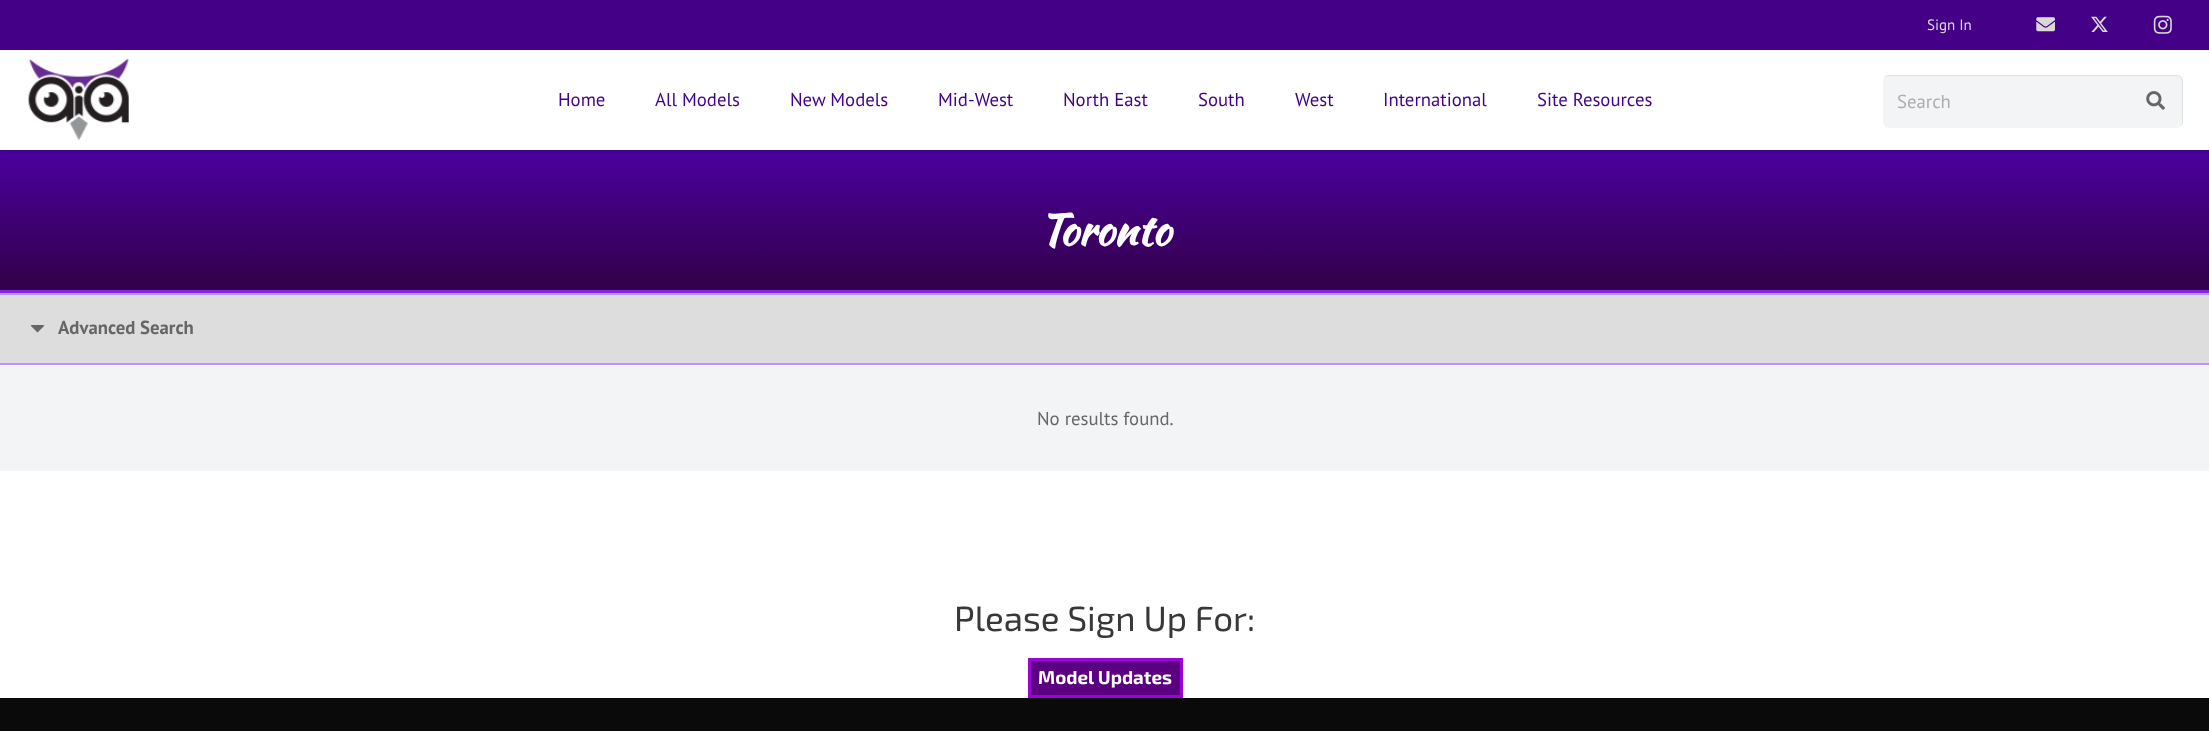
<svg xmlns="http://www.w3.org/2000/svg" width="2209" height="731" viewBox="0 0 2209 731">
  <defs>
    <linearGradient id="g1" gradientUnits="userSpaceOnUse" x1="1105" y1="0" x2="1105" y2="290"><stop offset="0" stop-color="#60f"/><stop offset="1" stop-color="#320047"/></linearGradient>
  </defs>
  <rect width="100%" height="100%" fill="#fff"/>
  <path d="M0 0h2209v50H0z" fill="#440087"/>
  <image x="2036" y="17" width="19" height="15" href="img/1.png"/>
  <image x="2091" y="16" width="17" height="16" href="img/2.png"/>
  <image x="2153" y="15" width="19" height="19" href="img/3.png"/>
  <path d="M0 150h2209v140H0z" fill="url(#g1)"/>
  <path d="M1 54h2208v97H1z" fill="#0000000d" filter="blur(0.5px)"/>
  <path d="M1 55h2208v98H1z" fill="#0000001a" filter="blur(3px)"/>
  <path d="M0 51h2209v99H0z" fill="#fff"/>
  <image x="28" y="58" width="101" height="82" href="img/4.png"/>
  <rect x="1883" y="75" width="300" height="53" rx="6" fill="#f2f4f5"/>
  <path d="M1888 76H2177C2180 76 2182 79 2182 82V123L2181 126C2182 125 2183 124 2183 122V81C2183 78 2180 75 2177 75H1889C1887 75 1885 76 1884 78C1885 77 1887 76 1888 76Z" fill="#00000014"/>
  <image x="2146" y="91" width="19" height="19" href="img/5.png"/>
  <path d="M0 290h2209v3H0z" fill="#8224e3"/>
  <path d="M0 296h2209v67H0z" fill="#ddd"/>
  <path d="M0 293h2209v2H0z" fill="#bc91fc"/>
  <path d="M0 363h2209v2H0z" fill="#bc91fc"/>
  <path d="M0 295h2209v1H0z" fill="#dce0e3"/>
  <path d="M0 361h2209v1H0z" fill="#dce0e3"/>
  <path d="M32.5 325C31.5 325 31 325.5 30.5 325.5L37.5 332.5L44.5 325.5C43.5 325 42.5 325 41 325Z" fill="#666"/>
  <path d="M0 365h2209v106H0z" fill="#f2f4f5"/>
  <path d="M1029.5 659.5h152v37H1029.5z" fill="#5b0080" stroke="#9b04d6" stroke-width="3"/>
  <path d="M0 698h2209v33H0z" fill="#0a0a0a"/>
  <text x="1927" y="30" font-family="PT Sans" font-size="15" fill="#d9d9d9">Sign In</text>
  <g font-family="PT Sans" font-size="18.75" fill="#440087">
    <text x="558" y="106">Home</text>
    <text x="655" y="106">All Models</text>
    <text x="790" y="106">New Models</text>
    <text x="938" y="106">Mid-West</text>
    <text x="1063" y="106">North East</text>
    <text x="1198" y="106">South</text>
    <text x="1295" y="106">West</text>
    <text x="1383" y="106">International</text>
    <text x="1537" y="106">Site Resources</text>
  </g>
  <text x="1897" y="108" font-family="PT Sans" font-size="18.75" fill="#acadae">Search</text>
  <text x="1039" y="245" font-family="Kaushan Script" font-size="42.5" font-weight="bold" fill="#fff">Toronto</text>
  <text x="58" y="334" font-family="PT Sans" font-size="18.75" font-weight="bold" fill="#666">Advanced Search</text>
  <text x="1037" y="425" font-family="PT Sans" font-size="18.75" fill="#666">No results found.</text>
  <text x="954" y="631" font-family="'Exo 2'" font-size="35" fill="#383838">Please Sign Up For:</text>
  <text x="1038" y="684" font-family="'Exo 2'" font-size="18.75" font-weight="bold" fill="#fff">Model Updates</text>
</svg>
